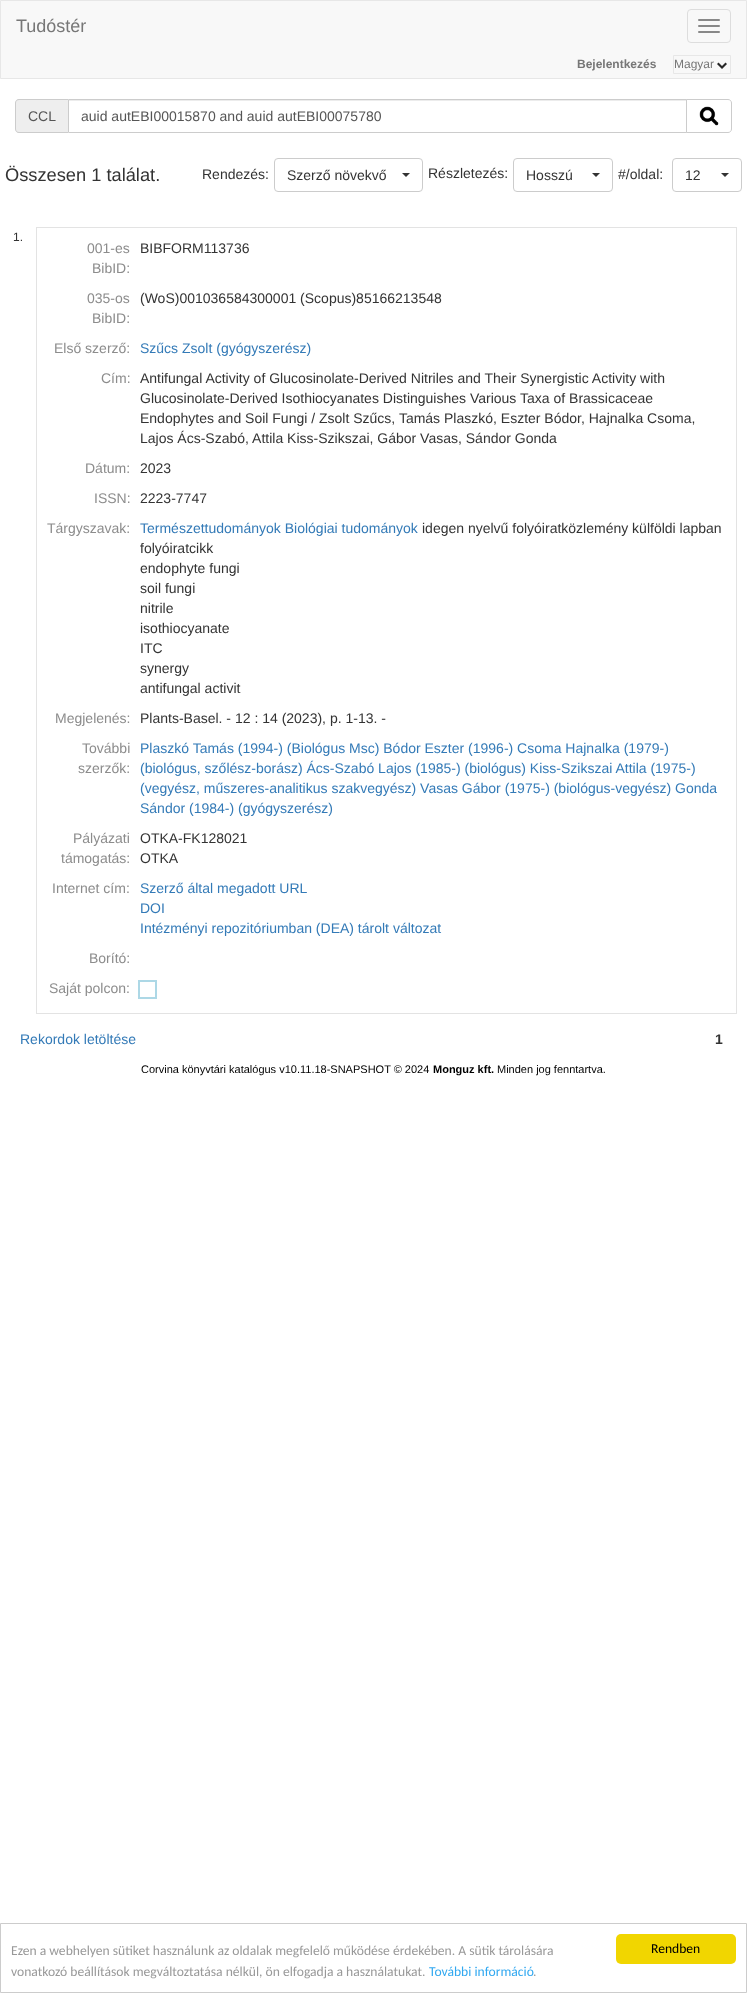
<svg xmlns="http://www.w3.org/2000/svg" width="747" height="1993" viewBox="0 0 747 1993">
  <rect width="100%" height="100%" fill="#fff"/>
  <path d="M0.5 0.5h746v78H0.5z" fill="#f8f8f8" stroke="#e7e7e7"/>
  <rect x="687.5" y="9.5" width="43" height="33" rx="3.5" fill="none" stroke="#ddd"/>
  <rect x="698" y="19" width="22" height="2" rx="1" fill="#888"/>
  <rect x="698" y="25" width="22" height="2" rx="1" fill="#888"/>
  <rect x="698" y="31" width="22" height="2" rx="1" fill="#888"/>
  <image x="717" y="62" width="10" height="7" href="img/1.png"/>
  <path d="M673.5 55.5h57v18H673.5z" fill="none" stroke="#e7e7e7"/>
  <path d="M19 99H68V133H19C17 133 15 131 15 129V103C15 101 17 99 19 99Z" fill="#eee"/>
  <path d="M19 99H68V133H19C17 133 15 131 15 129V103C15 101 17 99 19 99ZM19 100H68V132H19C17 132 16 131 16 129V103C16 101 17 100 19 100Z" fill="#ccc" fill-rule="evenodd"/>
  <path d="M69 100h617v1H69z" fill="#ececec"/>
  <path d="M68.5 99.5h618v33H68.5z" fill="none" stroke="#ccc"/>
  <path d="M686.5 99.5H728C730 99.5 731.5 101 731.5 103V129C731.5 131 730 132.5 728 132.5H686.5Z" fill="#fff" stroke="#ccc"/>
  <image x="699" y="106" width="20" height="20" href="img/2.png"/>
  <rect x="274.5" y="158.5" width="148" height="33" rx="3.5" fill="none" stroke="#ccc"/>
  <path d="M402 173H410L406 177Z" fill="#333"/>
  <rect x="513.5" y="158.5" width="99" height="33" rx="3.5" fill="none" stroke="#ccc"/>
  <path d="M592 173H600L596 177Z" fill="#333"/>
  <rect x="672.5" y="158.5" width="69" height="33" rx="3.5" fill="none" stroke="#ccc"/>
  <path d="M721 173H729L725 177Z" fill="#333"/>
  <path d="M36 227h701v1H36z" fill="#e3e3e3"/>
  <path d="M736 227h1v787H736z" fill="#e3e3e3"/>
  <path d="M36 1013h701v1H36z" fill="#e3e3e3"/>
  <path d="M36 227h1v787H36z" fill="#e3e3e3"/>
  <path d="M139 981h17v17H139z" fill="none" stroke="#add8e6" stroke-width="2"/>
  <path d="M0.5 1923.5h746v69H0.5z" fill="none" stroke="#ccc"/>
  <rect x="616" y="1934" width="120" height="30" rx="5" fill="#f1d600"/>
  <text x="16" y="32" font-family="Liberation Sans" font-size="18" fill="#777">Tudóstér</text>
  <text x="577" y="68" font-family="Liberation Sans" font-size="12" font-weight="bold" fill="#777">Bejelentkezés</text>
  <text x="674" y="68" font-family="Liberation Sans" font-size="12" fill="#777">Magyar</text>
  <g font-family="Liberation Sans" font-size="14" fill="#555">
    <text x="28" y="121">CCL</text>
    <text x="81" y="121">auid autEBI00015870 and auid autEBI00075780</text>
  </g>
  <text x="5" y="181" font-family="Liberation Sans" font-size="18.25" fill="#333">Összesen 1 találat.</text>
  <g font-family="Liberation Sans" font-size="14" fill="#333">
    <text x="202" y="179">Rendezés:</text>
    <text x="287" y="180">Szerző növekvő</text>
    <text x="428" y="178">Részletezés:</text>
    <text x="526" y="180">Hosszú</text>
    <text x="618" y="179">#/oldal:</text>
    <text x="685" y="180">12</text>
  </g>
  <text x="13" y="241" font-family="Liberation Sans" font-size="12" fill="#333">1.</text>
  <g font-family="Liberation Sans" font-size="14" fill="#8c8c8c">
    <text x="87" y="253">001-es</text>
    <text x="92" y="273">BibID:</text>
  </g>
  <text x="140" y="253" font-family="Liberation Sans" font-size="14" fill="#333">BIBFORM113736</text>
  <g font-family="Liberation Sans" font-size="14" fill="#8c8c8c">
    <text x="87" y="303">035-os</text>
    <text x="92" y="323">BibID:</text>
  </g>
  <text x="140" y="303" font-family="Liberation Sans" font-size="14" fill="#333">(WoS)001036584300001 (Scopus)85166213548</text>
  <text x="54" y="353" font-family="Liberation Sans" font-size="14" fill="#8c8c8c">Első szerző:</text>
  <text x="140" y="353" font-family="Liberation Sans" font-size="14" fill="#337ab7">Szűcs Zsolt (gyógyszerész)</text>
  <text x="101" y="383" font-family="Liberation Sans" font-size="14" fill="#8c8c8c">Cím:</text>
  <g font-family="Liberation Sans" font-size="14" fill="#333">
    <text x="140" y="383">Antifungal Activity of Glucosinolate-Derived Nitriles and Their Synergistic Activity with</text>
    <text x="140" y="403">Glucosinolate-Derived Isothiocyanates Distinguishes Various Taxa of Brassicaceae</text>
    <text x="140" y="423">Endophytes and Soil Fungi / Zsolt Szűcs, Tamás Plaszkó, Eszter Bódor, Hajnalka Csoma,</text>
    <text x="140" y="443">Lajos Ács-Szabó, Attila Kiss-Szikszai, Gábor Vasas, Sándor Gonda</text>
  </g>
  <text x="85" y="473" font-family="Liberation Sans" font-size="14" fill="#8c8c8c">Dátum:</text>
  <text x="140" y="473" font-family="Liberation Sans" font-size="14" fill="#333">2023</text>
  <text x="94" y="503" font-family="Liberation Sans" font-size="14" fill="#8c8c8c">ISSN:</text>
  <text x="140" y="503" font-family="Liberation Sans" font-size="14" fill="#333">2223-7747</text>
  <text x="47" y="533" font-family="Liberation Sans" font-size="14" fill="#8c8c8c">Tárgyszavak:</text>
  <text x="140" y="533" font-family="Liberation Sans" font-size="14" fill="#337ab7">Természettudományok Biológiai tudományok</text>
  <g font-family="Liberation Sans" font-size="14" fill="#333">
    <text x="422" y="533">idegen nyelvű folyóiratközlemény külföldi lapban</text>
    <text x="140" y="553">folyóiratcikk</text>
    <text x="140" y="573">endophyte fungi</text>
    <text x="140" y="593">soil fungi</text>
    <text x="140" y="613">nitrile</text>
    <text x="140" y="633">isothiocyanate</text>
    <text x="140" y="653">ITC</text>
    <text x="140" y="673">synergy</text>
    <text x="140" y="693">antifungal activit</text>
  </g>
  <text x="55" y="723" font-family="Liberation Sans" font-size="14" fill="#8c8c8c">Megjelenés:</text>
  <text x="140" y="723" font-family="Liberation Sans" font-size="14" fill="#333">Plants-Basel. - 12 : 14 (2023), p. 1-13. -</text>
  <g font-family="Liberation Sans" font-size="14" fill="#8c8c8c">
    <text x="82" y="753">További</text>
    <text x="78" y="773">szerzők:</text>
  </g>
  <g font-family="Liberation Sans" font-size="14" fill="#337ab7">
    <text x="140" y="753">Plaszkó Tamás (1994-) (Biológus Msc) Bódor Eszter (1996-) Csoma Hajnalka (1979-)</text>
    <text x="140" y="773">(biológus, szőlész-borász) Ács-Szabó Lajos (1985-) (biológus) Kiss-Szikszai Attila (1975-)</text>
    <text x="140" y="793">(vegyész, műszeres-analitikus szakvegyész) Vasas Gábor (1975-) (biológus-vegyész) Gonda</text>
    <text x="140" y="813">Sándor (1984-) (gyógyszerész)</text>
  </g>
  <g font-family="Liberation Sans" font-size="14" fill="#8c8c8c">
    <text x="73" y="843">Pályázati</text>
    <text x="61" y="863">támogatás:</text>
  </g>
  <g font-family="Liberation Sans" font-size="14" fill="#333">
    <text x="140" y="843">OTKA-FK128021</text>
    <text x="140" y="863">OTKA</text>
  </g>
  <text x="52" y="893" font-family="Liberation Sans" font-size="14" fill="#8c8c8c">Internet cím:</text>
  <g font-family="Liberation Sans" font-size="14" fill="#337ab7">
    <text x="140" y="893">Szerző által megadott URL</text>
    <text x="140" y="913">DOI</text>
    <text x="140" y="933">Intézményi repozitóriumban (DEA) tárolt változat</text>
  </g>
  <g font-family="Liberation Sans" font-size="14" fill="#8c8c8c">
    <text x="89" y="963">Borító:</text>
    <text x="49" y="993">Saját polcon:</text>
  </g>
  <text x="20" y="1044" font-family="Liberation Sans" font-size="14" fill="#337ab7">Rekordok letöltése</text>
  <text x="715" y="1044" font-family="Liberation Sans" font-size="14" font-weight="bold" fill="#333">1</text>
  <text x="141" y="1073" font-family="Liberation Sans" font-size="11" fill="#000">Corvina könyvtári katalógus v10.11.18-SNAPSHOT © 2024</text>
  <text x="433" y="1073" font-family="Liberation Sans" font-size="11" font-weight="bold" fill="#000">Monguz kft.</text>
  <text x="497" y="1073" font-family="Liberation Sans" font-size="11" fill="#000">Minden jog fenntartva.</text>
  <g font-family="Carlito" font-size="13.6" fill="#999">
    <text x="11" y="1955">Ezen a webhelyen sütiket használunk az oldalak megfelelő működése érdekében. A sütik tárolására</text>
    <text x="11" y="1976">vonatkozó beállítások megváltoztatása nélkül, ön elfogadja a használatukat.</text>
  </g>
  <text x="429" y="1976" font-family="Carlito" font-size="13.6" fill="#31a8f0">További információ</text>
  <text x="533" y="1976" font-family="Carlito" font-size="13.6" fill="#999">.</text>
  <text x="651" y="1953" font-family="Carlito" font-size="13.6" fill="#000">Rendben</text>
</svg>
